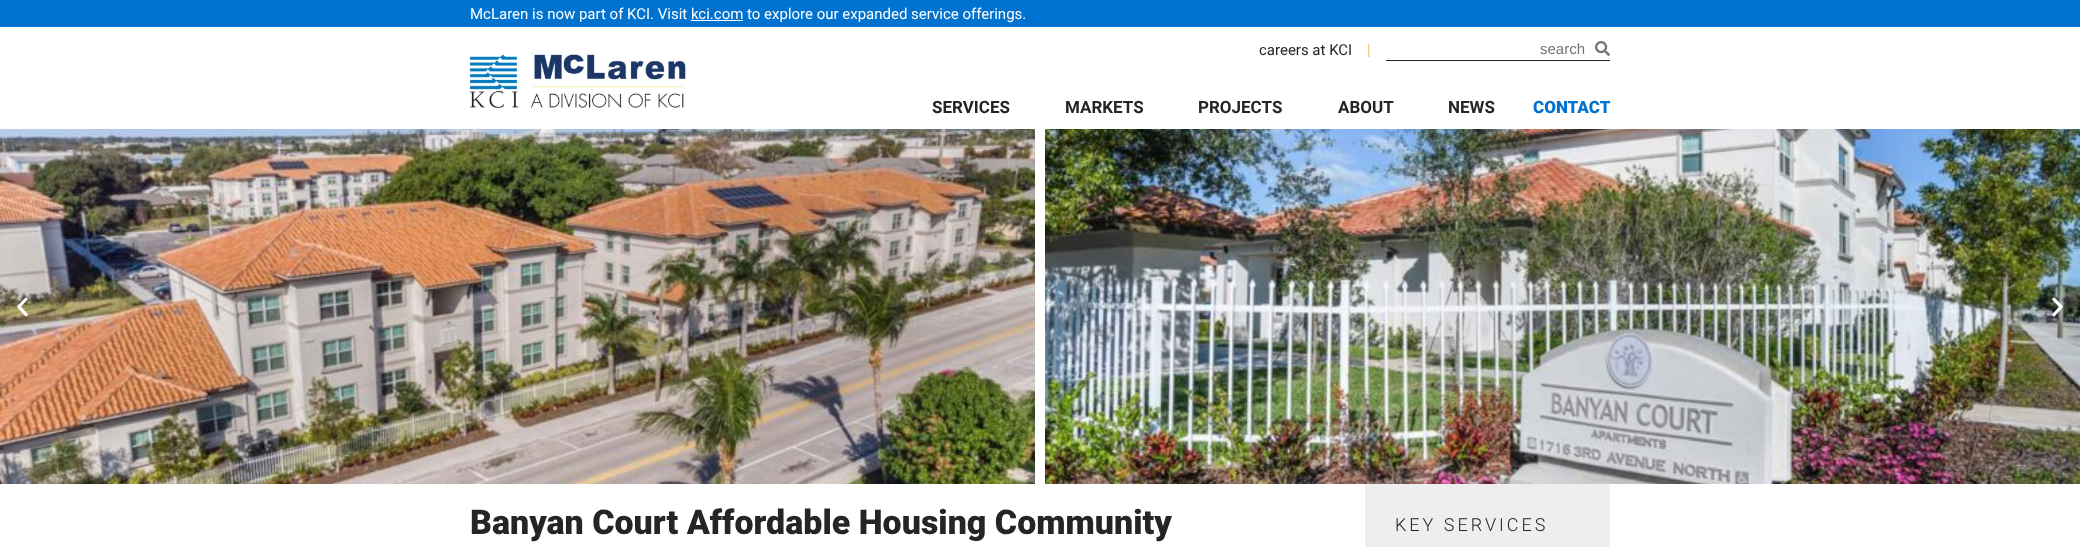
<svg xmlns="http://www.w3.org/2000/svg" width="2080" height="547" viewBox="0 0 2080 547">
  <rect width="100%" height="100%" fill="#fff"/>
  <path d="M0 0h2080v27H0z" fill="#0072cf"/>
  <path d="M691 20h52v1H691z" fill="#fff"/>
  <path d="M1386 60h224v1H1386z" fill="#252525"/>
  <image x="1595" y="41" width="15" height="15" href="img/1.png"/>
  <image x="469" y="54" width="217" height="54" href="img/2.png"/>
  <image x="0" y="129" width="1035" height="355" href="img/3.png"/>
  <image x="1045" y="129" width="1035" height="355" href="img/4.png"/>
  <image x="17" y="297" width="11" height="20" href="img/5.png"/>
  <image x="2052" y="297" width="11" height="20" href="img/6.png"/>
  <path d="M1365 484h245v63H1365z" fill="#eee"/>
  <text x="470" y="19" font-family="Roboto" font-size="15" fill="#fff">McLaren is now part of KCI. Visit kci.com to explore our expanded service offerings.</text>
  <text x="1259" y="55" font-family="Roboto" font-size="15" fill="#252525">careers at KCI</text>
  <text x="1367" y="55" font-family="Roboto" font-size="16" font-weight="300" fill="#f0ad42">|</text>
  <text x="1540" y="54" font-family="Liberation Sans" font-size="15" fill="#777576">search</text>
  <g font-family="Roboto" font-size="17" font-weight="bold" fill="#252525">
    <text x="932" y="113">SERVICES</text>
    <text x="1065" y="113">MARKETS</text>
    <text x="1198" y="113">PROJECTS</text>
    <text x="1338" y="113">ABOUT</text>
    <text x="1448" y="113">NEWS</text>
  </g>
  <text x="1533" y="113" font-family="Roboto" font-size="17" font-weight="900" fill="#0072cf">CONTACT</text>
  <text x="470" y="534" font-family="Roboto" font-size="34" font-weight="900" fill="#252525">Banyan Court Affordable Housing Community</text>
  <text x="1395" y="531" font-family="Roboto" font-size="18" font-weight="300" letter-spacing="3" fill="#252525">KEY SERVICES</text>
</svg>
